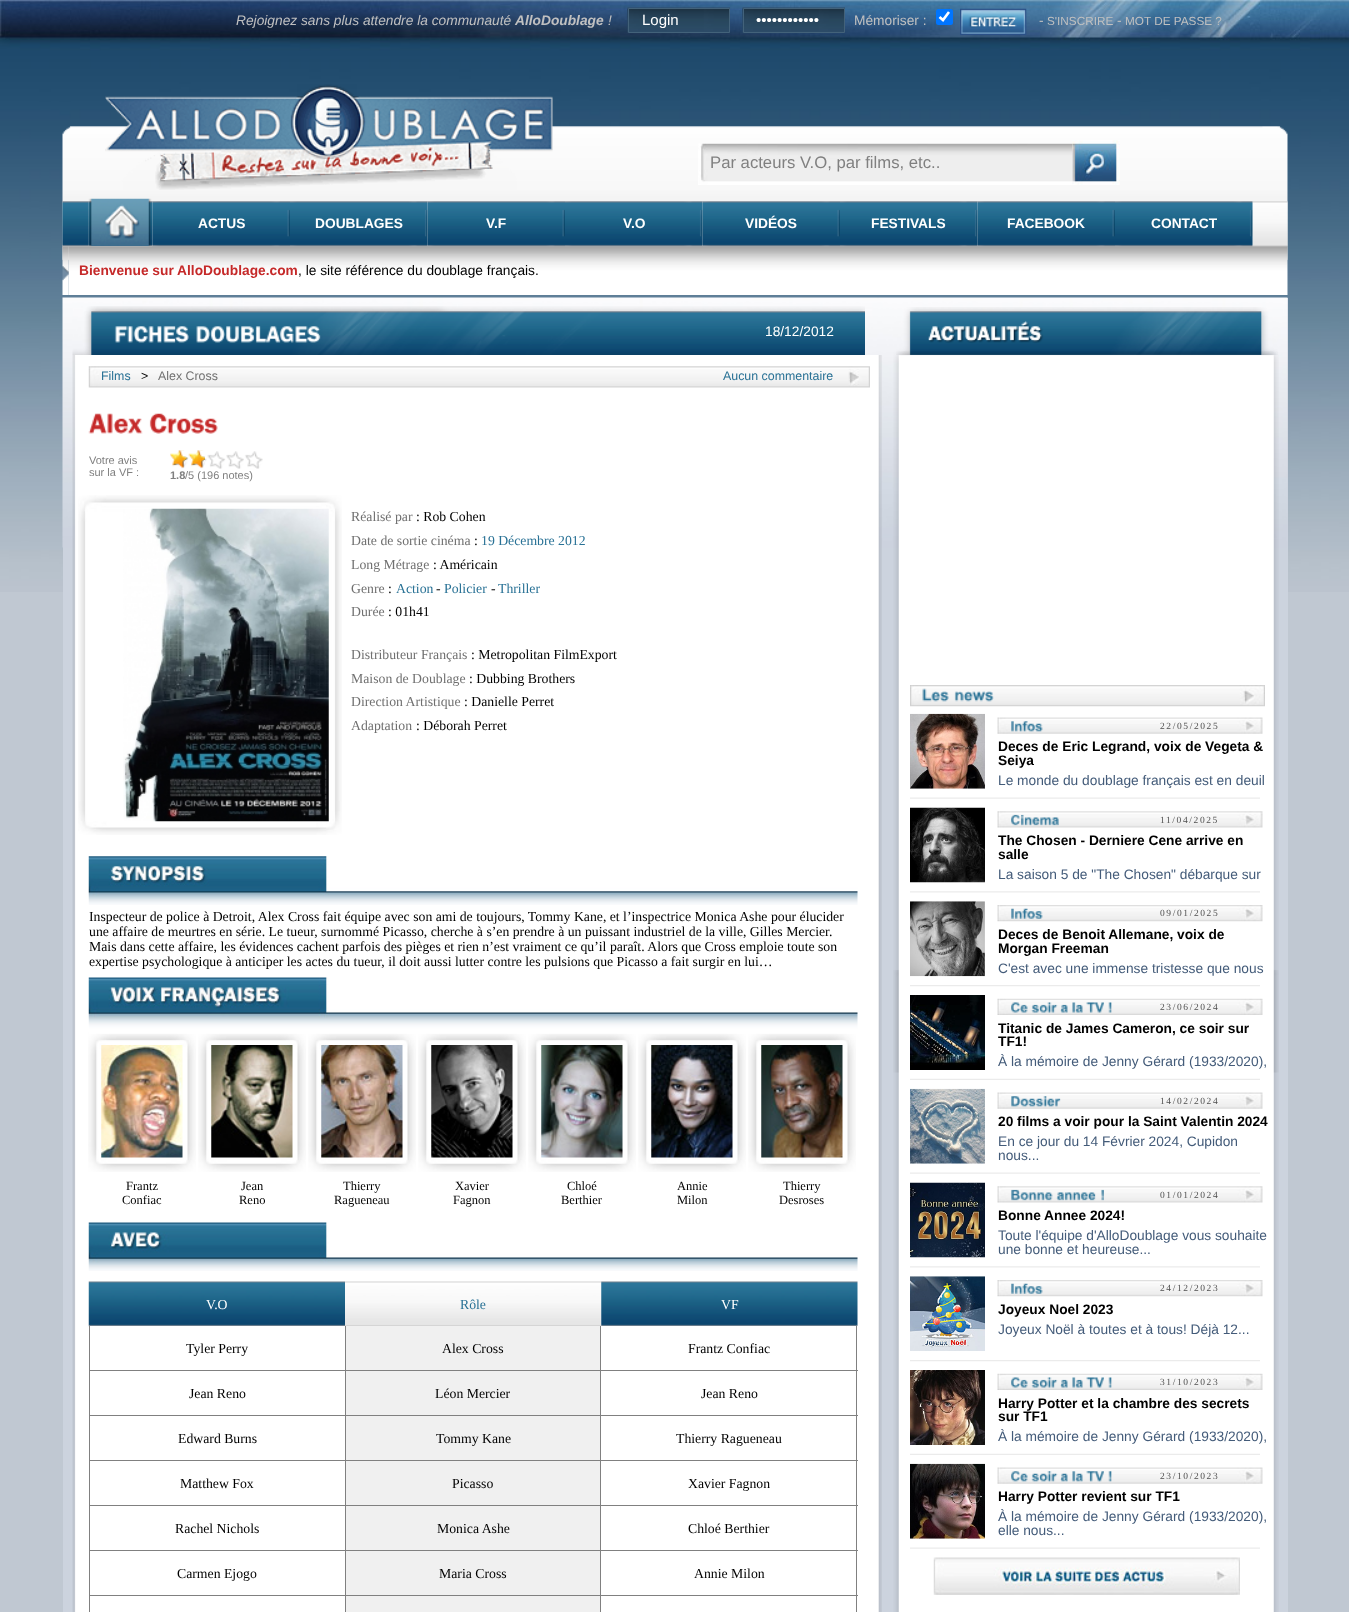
<svg xmlns="http://www.w3.org/2000/svg" width="1349" height="1612" viewBox="0 0 1349 1612">
  <rect width="100%" height="100%" fill="#c0c8d2"/>
  <image x="0" y="0" width="1349" height="592" href="img/1.png"/>
  <image x="627" y="7" width="103" height="26" href="img/2.png"/>
  <path d="M628.5 8.5h101v24H628.5z" fill="none" stroke="#43627a"/>
  <image x="742" y="7" width="103" height="26" href="img/3.png"/>
  <path d="M743.5 8.5h101v24H743.5z" fill="none" stroke="#43627a"/>
  <rect x="936" y="9" width="17" height="16" rx="2.5" fill="#0075ff"/>
  <path d="M939.5 17L943 20L949 12" fill="none" stroke="#fff" stroke-width="2.6"/>
  <image x="960" y="8" width="67" height="27" href="img/4.png"/>
  <image x="62" y="126" width="1226" height="135" href="img/5.png"/>
  <image x="105" y="84" width="448" height="106" href="img/6.png"/>
  <image x="698" y="143" width="375" height="42" href="img/7.png"/>
  <image x="1072" y="140" width="48" height="45" href="img/8.png"/>
  <image x="62" y="201" width="27" height="46" href="img/9.png"/>
  <image x="88" y="198" width="65" height="49" href="img/10.png"/>
  <image x="1252" y="201" width="36" height="46" href="img/17.png"/>
  <image x="62" y="246" width="7" height="49" href="img/18.png"/>
  <image x="68" y="246" width="1220" height="49" href="img/19.png"/>
  <image x="152" y="201" width="138" height="46" href="img/11.png"/>
  <image x="290" y="201" width="138" height="46" href="img/12.png"/>
  <image x="427" y="201" width="138" height="46" href="img/13.png"/>
  <image x="565" y="201" width="138" height="46" href="img/14.png"/>
  <image x="702" y="201" width="138" height="46" href="img/13.png"/>
  <image x="840" y="201" width="138" height="46" href="img/14.png"/>
  <image x="977" y="201" width="138" height="46" href="img/15.png"/>
  <image x="1115" y="201" width="138" height="46" href="img/16.png"/>
  <path d="M63 298h1225v1314H63z" fill="#ccd3de"/>
  <image x="62" y="297" width="1226" height="251" href="img/20.png"/>
  <image x="72" y="306" width="793" height="49" href="img/21.png"/>
  <image x="114" y="326" width="75" height="17" href="img/22.png"/>
  <image x="196" y="326" width="125" height="17" href="img/23.png"/>
  <image x="72" y="355" width="810" height="1257" href="img/24.png"/>
  <image x="88" y="366" width="782" height="22" href="img/25.png"/>
  <image x="88" y="413" width="55" height="21" href="img/26.png"/>
  <image x="149" y="413" width="69" height="21" href="img/27.png"/>
  <image x="170" y="451" width="93" height="18" href="img/28.png"/>
  <image x="170" y="450" width="35" height="19" href="img/29.png"/>
  <image x="78" y="495" width="264" height="340" href="img/30.png"/>
  <image x="123" y="508" width="206" height="314" href="img/31.png"/>
  <image x="88" y="856" width="770" height="49" href="img/32.png"/>
  <image x="88" y="1031" width="108" height="141" href="img/34.png"/>
  <image x="198" y="1033" width="108" height="139" href="img/36.png"/>
  <image x="308" y="1033" width="108" height="139" href="img/36.png"/>
  <image x="418" y="1033" width="108" height="139" href="img/36.png"/>
  <image x="528" y="1033" width="108" height="139" href="img/36.png"/>
  <image x="638" y="1033" width="108" height="139" href="img/36.png"/>
  <image x="748" y="1033" width="108" height="139" href="img/36.png"/>
  <image x="88" y="977" width="770" height="57" href="img/33.png"/>
  <image x="101" y="1045" width="82" height="113" href="img/35.png"/>
  <image x="211" y="1045" width="82" height="113" href="img/37.png"/>
  <image x="321" y="1045" width="82" height="113" href="img/38.png"/>
  <image x="431" y="1045" width="82" height="113" href="img/39.png"/>
  <image x="541" y="1045" width="82" height="113" href="img/40.png"/>
  <image x="651" y="1045" width="82" height="113" href="img/41.png"/>
  <image x="761" y="1045" width="82" height="113" href="img/42.png"/>
  <image x="88" y="1222" width="770" height="49" href="img/43.png"/>
  <image x="88" y="1281" width="257" height="46" href="img/44.png"/>
  <image x="345" y="1281" width="257" height="45" href="img/45.png"/>
  <image x="601" y="1281" width="257" height="45" href="img/46.png"/>
  <path d="M856 1326h1v286H856z" fill="#808080"/>
  <path d="M89 1595h1v17H89z" fill="#808080"/>
  <path d="M346 1596h254v16H346z" fill="#f0f0f0"/>
  <path d="M89 1595h769v1H89z" fill="#808080"/>
  <path d="M89 1550h1v46H89z" fill="#808080"/>
  <path d="M89 1550h769v1H89z" fill="#808080"/>
  <path d="M89 1505h1v46H89z" fill="#808080"/>
  <path d="M89 1505h769v1H89z" fill="#808080"/>
  <path d="M89 1460h1v46H89z" fill="#808080"/>
  <path d="M89 1460h769v1H89z" fill="#808080"/>
  <path d="M89 1415h1v46H89z" fill="#808080"/>
  <path d="M89 1415h769v1H89z" fill="#808080"/>
  <path d="M89 1370h1v46H89z" fill="#808080"/>
  <path d="M89 1370h769v1H89z" fill="#808080"/>
  <path d="M345 1326h1v286H345z" fill="#808080"/>
  <path d="M600 1326h1v286H600z" fill="#808080"/>
  <path d="M89 1326h1v45H89z" fill="#808080"/>
  <path d="M90 1326h255v1H90z" fill="#fff"/>
  <path d="M346 1326h254v44H346z" fill="#f0f0f0"/>
  <path d="M346 1371h254v44H346z" fill="#f0f0f0"/>
  <path d="M346 1416h254v44H346z" fill="#f0f0f0"/>
  <path d="M346 1461h254v44H346z" fill="#f0f0f0"/>
  <path d="M346 1506h254v44H346z" fill="#f0f0f0"/>
  <path d="M346 1551h254v44H346z" fill="#f0f0f0"/>
  <image x="896" y="307" width="382" height="48" href="img/47.png"/>
  <image x="893" y="351" width="386" height="1261" href="img/48.png"/>
  <image x="910" y="685" width="355" height="22" href="img/49.png"/>
  <image x="922" y="688" width="27" height="14" href="img/50.png"/>
  <image x="954" y="691" width="40" height="11" href="img/51.png"/>
  <image x="910" y="713" width="75" height="76" href="img/52.png"/>
  <image x="997" y="717" width="266" height="17" href="img/53.png"/>
  <image x="1011" y="721" width="32" height="11" href="img/54.png"/>
  <image x="910" y="797" width="350" height="2" href="img/55.png"/>
  <image x="910" y="807" width="75" height="76" href="img/56.png"/>
  <image x="997" y="811" width="266" height="17" href="img/57.png"/>
  <image x="1011" y="814" width="48" height="12" href="img/58.png"/>
  <image x="910" y="891" width="350" height="2" href="img/59.png"/>
  <image x="910" y="901" width="75" height="76" href="img/60.png"/>
  <image x="997" y="905" width="266" height="17" href="img/61.png"/>
  <image x="1011" y="908" width="32" height="11" href="img/62.png"/>
  <image x="910" y="985" width="350" height="2" href="img/63.png"/>
  <image x="910" y="995" width="75" height="75" href="img/64.png"/>
  <image x="997" y="998" width="266" height="17" href="img/65.png"/>
  <image x="1011" y="1002" width="17" height="11" href="img/66.png"/>
  <image x="1031" y="1002" width="27" height="11" href="img/67.png"/>
  <image x="1060" y="1004" width="8" height="9" href="img/68.png"/>
  <image x="1072" y="1002" width="11" height="11" href="img/69.png"/>
  <image x="1086" y="1002" width="18" height="11" href="img/70.png"/>
  <image x="1108" y="1002" width="4" height="11" href="img/71.png"/>
  <image x="910" y="1078" width="350" height="2" href="img/72.png"/>
  <image x="910" y="1088" width="75" height="76" href="img/73.png"/>
  <image x="997" y="1092" width="266" height="17" href="img/53.png"/>
  <image x="1011" y="1096" width="50" height="11" href="img/74.png"/>
  <image x="910" y="1172" width="350" height="2" href="img/55.png"/>
  <image x="910" y="1182" width="75" height="76" href="img/75.png"/>
  <image x="997" y="1186" width="266" height="17" href="img/57.png"/>
  <image x="1011" y="1189" width="42" height="12" href="img/76.png"/>
  <image x="1056" y="1192" width="40" height="9" href="img/77.png"/>
  <image x="1101" y="1189" width="3" height="12" href="img/78.png"/>
  <image x="910" y="1266" width="350" height="2" href="img/59.png"/>
  <image x="910" y="1276" width="75" height="75" href="img/79.png"/>
  <image x="997" y="1280" width="266" height="17" href="img/61.png"/>
  <image x="1011" y="1283" width="32" height="11" href="img/62.png"/>
  <image x="910" y="1360" width="350" height="2" href="img/63.png"/>
  <image x="910" y="1370" width="75" height="75" href="img/80.png"/>
  <image x="997" y="1373" width="266" height="17" href="img/65.png"/>
  <image x="1011" y="1377" width="17" height="11" href="img/66.png"/>
  <image x="1031" y="1377" width="27" height="11" href="img/67.png"/>
  <image x="1060" y="1379" width="8" height="9" href="img/68.png"/>
  <image x="1072" y="1377" width="11" height="11" href="img/69.png"/>
  <image x="1086" y="1377" width="18" height="11" href="img/70.png"/>
  <image x="1108" y="1377" width="4" height="11" href="img/71.png"/>
  <image x="910" y="1453" width="350" height="2" href="img/72.png"/>
  <image x="910" y="1463" width="75" height="76" href="img/81.png"/>
  <image x="997" y="1467" width="266" height="17" href="img/53.png"/>
  <image x="1011" y="1471" width="17" height="11" href="img/82.png"/>
  <image x="1031" y="1471" width="27" height="11" href="img/83.png"/>
  <image x="1060" y="1473" width="8" height="9" href="img/84.png"/>
  <image x="1072" y="1471" width="11" height="11" href="img/85.png"/>
  <image x="1086" y="1471" width="18" height="11" href="img/86.png"/>
  <image x="1108" y="1471" width="4" height="11" href="img/87.png"/>
  <image x="910" y="1547" width="350" height="2" href="img/55.png"/>
  <image x="933" y="1557" width="307" height="38" href="img/88.png"/>
  <text x="236" y="25" font-family="Liberation Sans" font-size="13.75" font-style="italic" fill="#c0c0c0">Rejoignez sans plus attendre la communauté</text>
  <text x="515" y="25" font-family="Liberation Sans" font-size="13.75" font-weight="bold" font-style="italic" fill="#c0c0c0">AlloDoublage</text>
  <text x="608" y="25" font-family="Liberation Sans" font-size="13.75" font-style="italic" fill="#c0c0c0">!</text>
  <g font-family="Liberation Sans" font-size="15" fill="#fff">
    <text x="642" y="25">Login</text>
    <text x="756" y="25">••••••••••••</text>
  </g>
  <g font-family="Liberation Sans" font-size="13.75" fill="#c0c0c0">
    <text x="854" y="25">Mémoriser :</text>
    <text x="1039" y="25">-</text>
  </g>
  <text x="1047" y="25" font-family="Liberation Sans" font-size="11.75" fill="#c0c0c0">S'INSCRIRE</text>
  <text x="1117" y="25" font-family="Liberation Sans" font-size="13.75" fill="#c0c0c0">-</text>
  <text x="1125" y="25" font-family="Liberation Sans" font-size="11.75" fill="#c0c0c0">MOT DE PASSE ?</text>
  <text x="710" y="168" font-family="Liberation Sans" font-size="16.7" fill="#808080">Par acteurs V.O, par films, etc..</text>
  <g font-family="Liberation Sans" font-size="13.75" font-weight="bold" fill="#fff">
    <text x="198" y="228">ACTUS</text>
    <text x="315" y="228">DOUBLAGES</text>
    <text x="486" y="228">V.F</text>
    <text x="623" y="228">V.O</text>
    <text x="745" y="228">VIDÉOS</text>
    <text x="871" y="228">FESTIVALS</text>
    <text x="1007" y="228">FACEBOOK</text>
    <text x="1151" y="228">CONTACT</text>
  </g>
  <text x="79" y="275" font-family="Liberation Sans" font-size="13.75" font-weight="bold" fill="#c52929">Bienvenue sur AlloDoublage.com</text>
  <text x="298" y="275" font-family="Liberation Sans" font-size="13.75" fill="#000">, le site référence du doublage français.</text>
  <text x="765" y="336" font-family="Liberation Sans" font-size="13.75" fill="#fff">18/12/2012</text>
  <text x="101" y="380" font-family="Liberation Sans" font-size="12.4" fill="#287195">Films</text>
  <text x="141" y="380" font-family="Liberation Sans" font-size="12.4" fill="#000">&gt;</text>
  <text x="158" y="380" font-family="Liberation Sans" font-size="12.4" fill="#707070">Alex Cross</text>
  <text x="723" y="380" font-family="Liberation Sans" font-size="12.4" fill="#287195">Aucun commentaire</text>
  <g font-family="Liberation Sans" font-size="11" fill="#808080">
    <text x="89" y="464">Votre avis</text>
    <text x="89" y="476">sur la VF :</text>
  </g>
  <text x="170" y="479" font-family="Liberation Sans" font-size="11" font-weight="bold" fill="#808080">1.8</text>
  <text x="185" y="479" font-family="Liberation Sans" font-size="11" fill="#808080">/5 (196 notes)</text>
  <text x="351" y="521" font-family="Liberation Serif" font-size="13.75" fill="#707070">Réalisé par</text>
  <text x="416" y="521" font-family="Liberation Serif" font-size="13.75" fill="#000">: Rob Cohen</text>
  <text x="351" y="545" font-family="Liberation Serif" font-size="13.75" fill="#707070">Date de sortie cinéma</text>
  <text x="474" y="545" font-family="Liberation Serif" font-size="13.75" fill="#000">:</text>
  <text x="481" y="545" font-family="Liberation Serif" font-size="13.75" fill="#287195">19 Décembre 2012</text>
  <text x="351" y="569" font-family="Liberation Serif" font-size="13.75" fill="#707070">Long Métrage</text>
  <text x="433" y="569" font-family="Liberation Serif" font-size="13.75" fill="#000">: Américain</text>
  <text x="351" y="593" font-family="Liberation Serif" font-size="13.75" fill="#707070">Genre</text>
  <text x="388" y="593" font-family="Liberation Serif" font-size="13.75" fill="#000">:</text>
  <text x="396" y="593" font-family="Liberation Serif" font-size="13.75" fill="#287195">Action</text>
  <text x="436" y="593" font-family="Liberation Serif" font-size="13.75" fill="#000">-</text>
  <text x="444" y="593" font-family="Liberation Serif" font-size="13.75" fill="#287195">Policier</text>
  <text x="491" y="593" font-family="Liberation Serif" font-size="13.75" fill="#000">-</text>
  <text x="498" y="593" font-family="Liberation Serif" font-size="13.75" fill="#287195">Thriller</text>
  <text x="351" y="616" font-family="Liberation Serif" font-size="13.75" fill="#707070">Durée</text>
  <text x="388" y="616" font-family="Liberation Serif" font-size="13.75" fill="#000">: 01h41</text>
  <text x="351" y="659" font-family="Liberation Serif" font-size="13.75" fill="#707070">Distributeur Français</text>
  <text x="471" y="659" font-family="Liberation Serif" font-size="13.75" fill="#000">: Metropolitan FilmExport</text>
  <text x="351" y="683" font-family="Liberation Serif" font-size="13.75" fill="#707070">Maison de Doublage</text>
  <text x="469" y="683" font-family="Liberation Serif" font-size="13.75" fill="#000">: Dubbing Brothers</text>
  <text x="351" y="706" font-family="Liberation Serif" font-size="13.75" fill="#707070">Direction Artistique</text>
  <text x="464" y="706" font-family="Liberation Serif" font-size="13.75" fill="#000">: Danielle Perret</text>
  <text x="351" y="730" font-family="Liberation Serif" font-size="13.75" fill="#707070">Adaptation</text>
  <g font-family="Liberation Serif" font-size="13.75" fill="#000">
    <text x="416" y="730">: Déborah Perret</text>
    <text x="89" y="921">Inspecteur de police à Detroit, Alex Cross fait équipe avec son ami de toujours, Tommy Kane, et l’inspectrice Monica Ashe pour élucider</text>
    <text x="89" y="936">une affaire de meurtres en série. Le tueur, surnommé Picasso, cherche à s’en prendre à un puissant industriel de la ville, Gilles Mercier.</text>
    <text x="89" y="951">Mais dans cette affaire, les évidences cachent parfois des pièges et rien n’est vraiment ce qu’il paraît. Alors que Cross emploie toute son</text>
    <text x="89" y="966">expertise psychologique à anticiper les actes du tueur, il doit aussi lutter contre les pulsions que Picasso a fait surgir en lui…</text>
  </g>
  <g font-family="Liberation Serif" font-size="12.5" fill="#000">
    <text x="126" y="1190">Frantz</text>
    <text x="122" y="1204">Confiac</text>
    <text x="241" y="1190">Jean</text>
    <text x="239" y="1204">Reno</text>
    <text x="343" y="1190">Thierry</text>
    <text x="334" y="1204">Ragueneau</text>
    <text x="455" y="1190">Xavier</text>
    <text x="453" y="1204">Fagnon</text>
    <text x="567" y="1190">Chloé</text>
    <text x="561" y="1204">Berthier</text>
    <text x="677" y="1190">Annie</text>
    <text x="677" y="1204">Milon</text>
    <text x="783" y="1190">Thierry</text>
    <text x="779" y="1204">Desroses</text>
  </g>
  <text x="206" y="1309" font-family="Liberation Serif" font-size="13.75" fill="#fff">V.O</text>
  <text x="460" y="1309" font-family="Liberation Serif" font-size="13.75" fill="#287195">Rôle</text>
  <text x="721" y="1309" font-family="Liberation Serif" font-size="13.75" fill="#fff">VF</text>
  <g font-family="Liberation Serif" font-size="13.75" fill="#000">
    <text x="186" y="1353">Tyler Perry</text>
    <text x="442" y="1353">Alex Cross</text>
    <text x="688" y="1353">Frantz Confiac</text>
    <text x="189" y="1398">Jean Reno</text>
    <text x="435" y="1398">Léon Mercier</text>
    <text x="701" y="1398">Jean Reno</text>
    <text x="178" y="1443">Edward Burns</text>
    <text x="436" y="1443">Tommy Kane</text>
    <text x="676" y="1443">Thierry Ragueneau</text>
    <text x="180" y="1488">Matthew Fox</text>
    <text x="452" y="1488">Picasso</text>
    <text x="688" y="1488">Xavier Fagnon</text>
    <text x="175" y="1533">Rachel Nichols</text>
    <text x="437" y="1533">Monica Ashe</text>
    <text x="688" y="1533">Chloé Berthier</text>
    <text x="177" y="1578">Carmen Ejogo</text>
    <text x="439" y="1578">Maria Cross</text>
    <text x="694" y="1578">Annie Milon</text>
  </g>
  <text x="1160" y="729" font-family="Liberation Serif" font-size="9.5" letter-spacing="1.6" fill="#505050">22/05/2025</text>
  <g font-family="Liberation Sans" font-size="13.75" font-weight="bold" fill="#000">
    <text x="998" y="751">Deces de Eric Legrand, voix de Vegeta &amp;</text>
    <text x="998" y="765">Seiya</text>
  </g>
  <text x="998" y="785" font-family="Liberation Sans" font-size="13.75" fill="#435b79">Le monde du doublage français est en deuil</text>
  <text x="1160" y="823" font-family="Liberation Serif" font-size="9.5" letter-spacing="1.6" fill="#505050">11/04/2025</text>
  <g font-family="Liberation Sans" font-size="13.75" font-weight="bold" fill="#000">
    <text x="998" y="845">The Chosen - Derniere Cene arrive en</text>
    <text x="998" y="859">salle</text>
  </g>
  <text x="998" y="879" font-family="Liberation Sans" font-size="13.75" fill="#435b79">La saison 5 de "The Chosen" débarque sur</text>
  <text x="1160" y="916" font-family="Liberation Serif" font-size="9.5" letter-spacing="1.6" fill="#505050">09/01/2025</text>
  <g font-family="Liberation Sans" font-size="13.75" font-weight="bold" fill="#000">
    <text x="998" y="939">Deces de Benoit Allemane, voix de</text>
    <text x="998" y="953">Morgan Freeman</text>
  </g>
  <text x="998" y="973" font-family="Liberation Sans" font-size="13.75" fill="#435b79">C'est avec une immense tristesse que nous</text>
  <text x="1160" y="1010" font-family="Liberation Serif" font-size="9.5" letter-spacing="1.6" fill="#505050">23/06/2024</text>
  <g font-family="Liberation Sans" font-size="13.75" font-weight="bold" fill="#000">
    <text x="998" y="1033">Titanic de James Cameron, ce soir sur</text>
    <text x="998" y="1046">TF1!</text>
  </g>
  <text x="998" y="1066" font-family="Liberation Sans" font-size="13.75" fill="#435b79">À la mémoire de Jenny Gérard (1933/2020),</text>
  <text x="1160" y="1104" font-family="Liberation Serif" font-size="9.5" letter-spacing="1.6" fill="#505050">14/02/2024</text>
  <text x="998" y="1126" font-family="Liberation Sans" font-size="13.75" font-weight="bold" fill="#000">20 films a voir pour la Saint Valentin 2024</text>
  <g font-family="Liberation Sans" font-size="13.75" fill="#435b79">
    <text x="998" y="1146">En ce jour du 14 Février 2024, Cupidon</text>
    <text x="998" y="1160">nous...</text>
  </g>
  <text x="1160" y="1198" font-family="Liberation Serif" font-size="9.5" letter-spacing="1.6" fill="#505050">01/01/2024</text>
  <text x="998" y="1220" font-family="Liberation Sans" font-size="13.75" font-weight="bold" fill="#000">Bonne Annee 2024!</text>
  <g font-family="Liberation Sans" font-size="13.75" fill="#435b79">
    <text x="998" y="1240">Toute l'équipe d'AlloDoublage vous souhaite</text>
    <text x="998" y="1254">une bonne et heureuse...</text>
  </g>
  <text x="1160" y="1291" font-family="Liberation Serif" font-size="9.5" letter-spacing="1.6" fill="#505050">24/12/2023</text>
  <text x="998" y="1314" font-family="Liberation Sans" font-size="13.75" font-weight="bold" fill="#000">Joyeux Noel 2023</text>
  <text x="998" y="1334" font-family="Liberation Sans" font-size="13.75" fill="#435b79">Joyeux Noël à toutes et à tous! Déjà 12...</text>
  <text x="1160" y="1385" font-family="Liberation Serif" font-size="9.5" letter-spacing="1.6" fill="#505050">31/10/2023</text>
  <g font-family="Liberation Sans" font-size="13.75" font-weight="bold" fill="#000">
    <text x="998" y="1408">Harry Potter et la chambre des secrets</text>
    <text x="998" y="1421">sur TF1</text>
  </g>
  <text x="998" y="1441" font-family="Liberation Sans" font-size="13.75" fill="#435b79">À la mémoire de Jenny Gérard (1933/2020),</text>
  <text x="1160" y="1479" font-family="Liberation Serif" font-size="9.5" letter-spacing="1.6" fill="#505050">23/10/2023</text>
  <text x="998" y="1501" font-family="Liberation Sans" font-size="13.75" font-weight="bold" fill="#000">Harry Potter revient sur TF1</text>
  <g font-family="Liberation Sans" font-size="13.75" fill="#435b79">
    <text x="998" y="1521">À la mémoire de Jenny Gérard (1933/2020),</text>
    <text x="998" y="1535">elle nous...</text>
  </g>
</svg>
